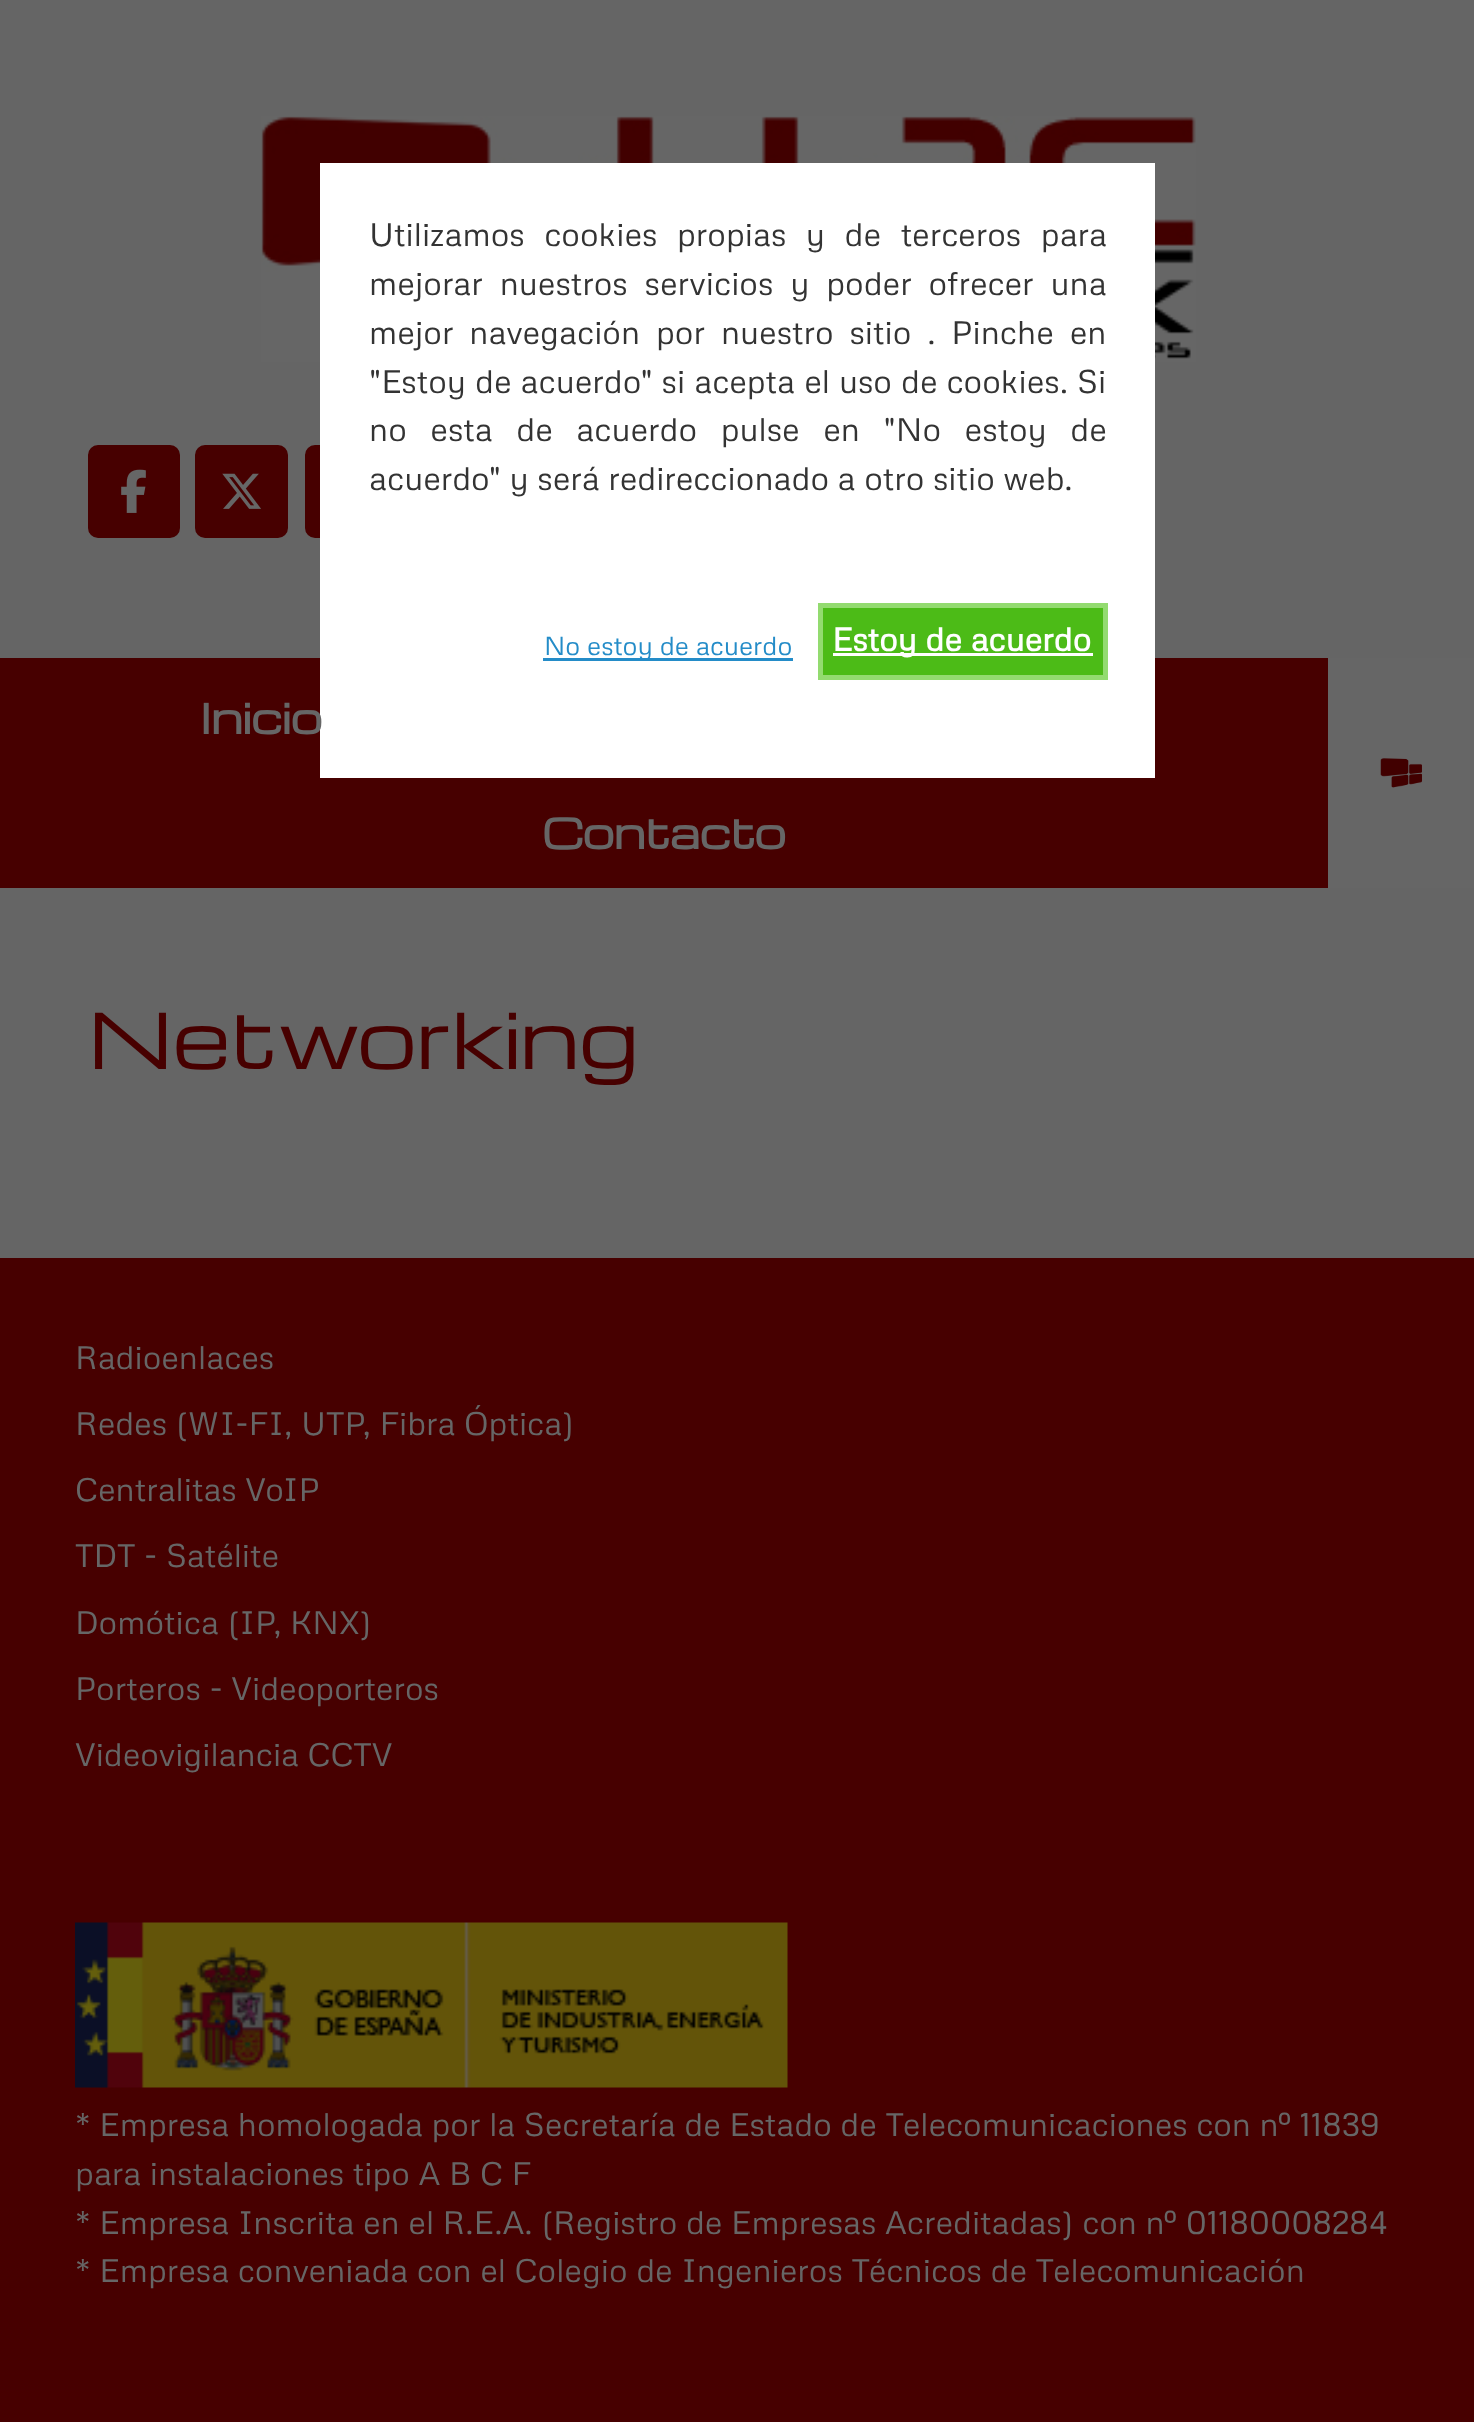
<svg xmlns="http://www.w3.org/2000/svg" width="1474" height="2422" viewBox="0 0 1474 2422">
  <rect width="100%" height="100%" fill="#470000"/>
  <path d="M0 0h1474v658H0z" fill="#656565"/>
  <image x="261" y="116" width="935" height="247" href="img/1.png"/>
  <rect x="306.5" y="446.5" width="90" height="90" rx="8.5" fill="#470000" stroke="#470000" stroke-width="3"/>
  <path d="M320 163h835v615H320z" fill="#fff"/>
  <path d="M543 658h250v3H543z" fill="#248cc8"/>
  <path d="M820.5 605.5h285v72H820.5z" fill="#4cbb17" stroke="#93db70" stroke-width="5"/>
  <path d="M833 653h260v3H833z" fill="#fff"/>
  <rect x="89.5" y="446.5" width="89" height="90" rx="8.5" fill="#470000" stroke="#470000" stroke-width="3"/>
  <image x="121" y="469" width="25" height="44" href="img/2.png"/>
  <rect x="196.5" y="446.5" width="90" height="90" rx="8.5" fill="#470000" stroke="#470000" stroke-width="3"/>
  <image x="222" y="473" width="39" height="36" href="img/3.png"/>
  <path d="M1328 658h146v230H1328z" fill="#666"/>
  <image x="1380" y="758" width="43" height="30" href="img/4.png"/>
  <path d="M0 888h1474v370H0z" fill="#656565"/>
  <image x="75" y="1922" width="713" height="166" href="img/5.png"/>
  <g font-family="Metrophobic" font-size="32.5" fill="#333">
    <text x="369" y="246" word-spacing="11">Utilizamos cookies propias y de terceros para</text>
    <text x="369" y="295" word-spacing="8.25">mejorar nuestros servicios y poder ofrecer una</text>
    <text x="369" y="344" word-spacing="7.25">mejor navegación por nuestro sitio . Pinche en</text>
    <text x="369" y="393" word-spacing="0.5">"Estoy de acuerdo" si acepta el uso de cookies. Si</text>
    <text x="369" y="441" word-spacing="15">no esta de acuerdo pulse en "No estoy de</text>
    <text x="369" y="490">acuerdo" y será redireccionado a otro sitio web.</text>
  </g>
  <text x="544" y="655" font-family="Metrophobic" font-size="26" fill="#248cc8">No estoy de acuerdo</text>
  <text x="832" y="651" font-family="Metrophobic" font-size="32.5" font-weight="bold" fill="#fff">Estoy de acuerdo</text>
  <g font-family="Michroma" font-size="40" font-weight="bold" fill="#666">
    <text x="200" y="734">Inicio</text>
    <text x="542" y="849">Contacto</text>
  </g>
  <text x="88" y="1069" font-family="Michroma" font-size="75" fill="#470000">Networking</text>
  <g font-family="Metrophobic" font-size="32.5" fill="#666">
    <text x="75" y="1369">Radioenlaces</text>
    <text x="75" y="1435">Redes (WI-FI, UTP, Fibra Óptica)</text>
    <text x="75" y="1501">Centralitas VoIP</text>
    <text x="75" y="1567">TDT - Satélite</text>
    <text x="75" y="1634">Domótica (IP, KNX)</text>
    <text x="75" y="1700">Porteros - Videoporteros</text>
    <text x="75" y="1766">Videovigilancia CCTV</text>
    <text x="75" y="2136">* Empresa homologada por la Secretaría de Estado de Telecomunicaciones con nº 11839</text>
    <text x="75" y="2185">para instalaciones tipo A B C F</text>
    <text x="75" y="2234">* Empresa Inscrita en el R.E.A. (Registro de Empresas Acreditadas) con nº 01180008284</text>
    <text x="75" y="2282">* Empresa conveniada con el Colegio de Ingenieros Técnicos de Telecomunicación</text>
  </g>
</svg>
